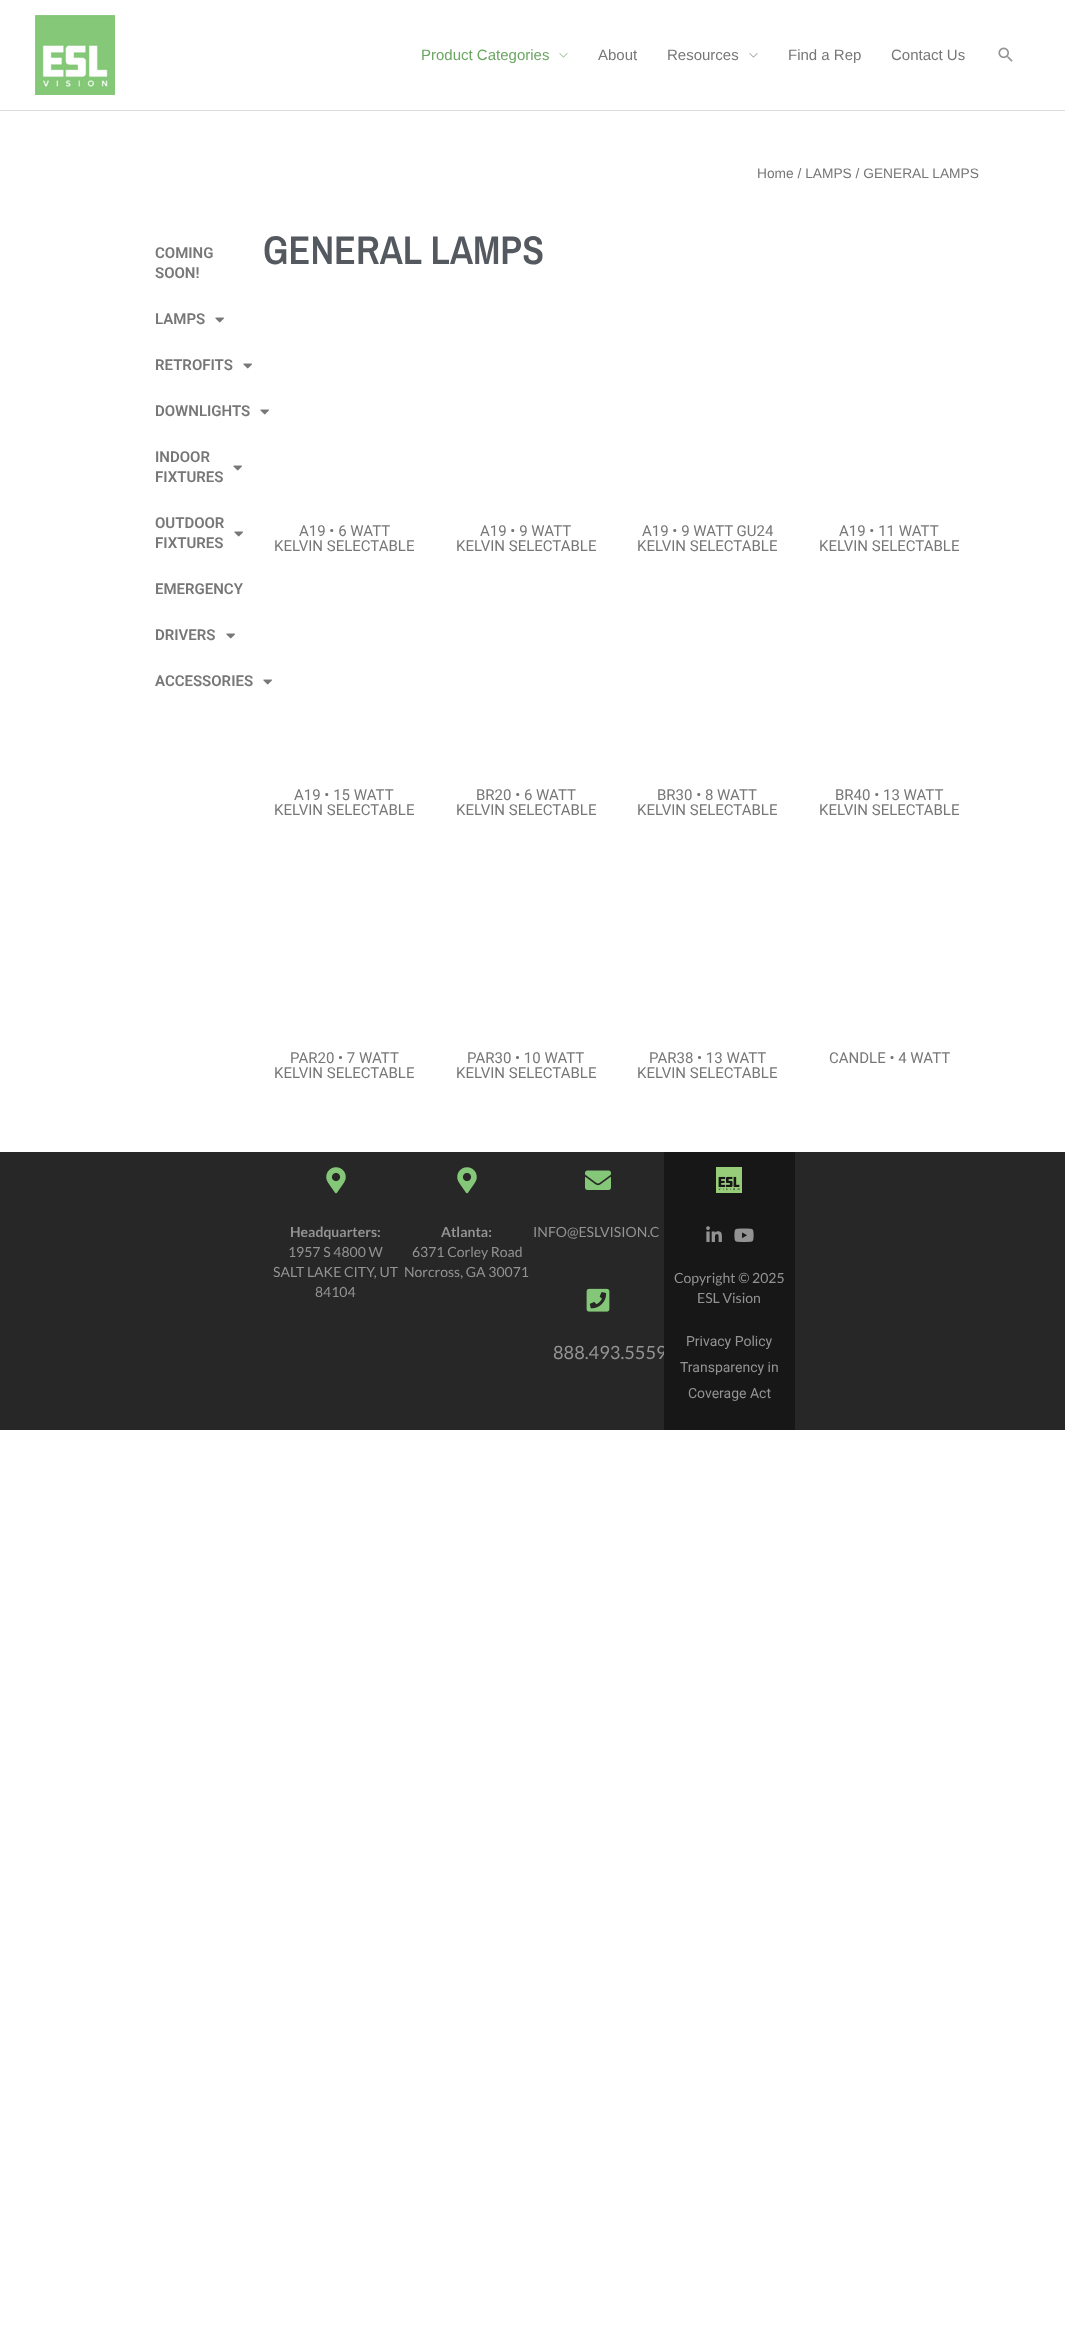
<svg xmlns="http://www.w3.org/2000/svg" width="1065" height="2326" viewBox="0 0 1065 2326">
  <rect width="100%" height="100%" fill="#fff"/>
  <path d="M0 110h1065v1H0z" fill="#dbdcdd"/>
  <image x="35" y="15" width="80" height="80" href="img/1.png"/>
  <image x="559" y="53" width="9" height="5" href="img/2.png"/>
  <image x="749" y="53" width="9" height="5" href="img/3.png"/>
  <image x="998" y="47" width="15" height="15" href="img/4.png"/>
  <image x="215" y="317" width="9" height="6" href="img/5.png"/>
  <image x="243" y="363" width="9" height="6" href="img/5.png"/>
  <image x="260" y="409" width="9" height="6" href="img/5.png"/>
  <image x="233" y="465" width="9" height="6" href="img/5.png"/>
  <image x="234" y="531" width="9" height="6" href="img/5.png"/>
  <image x="226" y="633" width="9" height="6" href="img/5.png"/>
  <image x="263" y="679" width="9" height="6" href="img/5.png"/>
  <path d="M0 1152h1065v278H0z" fill="#272727"/>
  <image x="326" y="1167" width="20" height="27" href="img/6.png"/>
  <image x="457" y="1167" width="20" height="27" href="img/6.png"/>
  <image x="585" y="1170" width="26" height="20" href="img/7.png"/>
  <image x="586" y="1288" width="24" height="24" href="img/8.png"/>
  <text x="421" y="60" font-family="Liberation Sans" font-size="15" fill="#6da664">Product Categories</text>
  <g font-family="Liberation Sans" font-size="15" fill="#777">
    <text x="598" y="60">About</text>
    <text x="667" y="60">Resources</text>
    <text x="788" y="60">Find a Rep</text>
    <text x="891" y="60">Contact Us</text>
  </g>
  <text x="757" y="178" font-family="Liberation Sans" font-size="13.75" fill="#777">Home / LAMPS / GENERAL LAMPS</text>
  <g font-family="Roboto" font-size="15" font-weight="600" fill="#777">
    <text x="155" y="258">COMING</text>
    <text x="155" y="278">SOON!</text>
    <text x="155" y="324">LAMPS</text>
    <text x="155" y="370">RETROFITS</text>
    <text x="155" y="416">DOWNLIGHTS</text>
    <text x="155" y="462">INDOOR</text>
    <text x="155" y="482">FIXTURES</text>
    <text x="155" y="528">OUTDOOR</text>
    <text x="155" y="548">FIXTURES</text>
    <text x="155" y="594">EMERGENCY</text>
    <text x="155" y="640">DRIVERS</text>
    <text x="155" y="686">ACCESSORIES</text>
  </g>
  <text x="263" y="264" font-family="Archivo Narrow" font-size="40" font-weight="600" fill="#54595f">GENERAL LAMPS</text>
  <g font-family="Roboto" font-size="15" fill="#777">
    <text x="299" y="536">A19 • 6 WATT</text>
    <text x="274" y="551">KELVIN SELECTABLE</text>
    <text x="480" y="536">A19 • 9 WATT</text>
    <text x="456" y="551">KELVIN SELECTABLE</text>
    <text x="642" y="536">A19 • 9 WATT GU24</text>
    <text x="637" y="551">KELVIN SELECTABLE</text>
    <text x="839" y="536">A19 • 11 WATT</text>
    <text x="819" y="551">KELVIN SELECTABLE</text>
    <text x="294" y="800">A19 • 15 WATT</text>
    <text x="274" y="815">KELVIN SELECTABLE</text>
    <text x="476" y="800">BR20 • 6 WATT</text>
    <text x="456" y="815">KELVIN SELECTABLE</text>
    <text x="657" y="800">BR30 • 8 WATT</text>
    <text x="637" y="815">KELVIN SELECTABLE</text>
    <text x="835" y="800">BR40 • 13 WATT</text>
    <text x="819" y="815">KELVIN SELECTABLE</text>
    <text x="290" y="1063">PAR20 • 7 WATT</text>
    <text x="274" y="1078">KELVIN SELECTABLE</text>
    <text x="467" y="1063">PAR30 • 10 WATT</text>
    <text x="456" y="1078">KELVIN SELECTABLE</text>
    <text x="649" y="1063">PAR38 • 13 WATT</text>
    <text x="637" y="1078">KELVIN SELECTABLE</text>
    <text x="829" y="1063">CANDLE • 4 WATT</text>
  </g>
  <text x="290" y="1237" font-family="Lato" font-size="14" font-weight="bold" fill="#939393">Headquarters:</text>
  <g font-family="Lato" font-size="14" fill="#939393">
    <text x="288" y="1257">1957 S 4800 W</text>
    <text x="273" y="1277">SALT LAKE CITY, UT</text>
    <text x="315" y="1297">84104</text>
  </g>
  <text x="441" y="1237" font-family="Lato" font-size="14" font-weight="bold" fill="#939393">Atlanta:</text>
  <g font-family="Lato" font-size="14" fill="#939393">
    <text x="412" y="1257">6371 Corley Road</text>
    <text x="404" y="1277">Norcross, GA 30071</text>
    <text x="533" y="1237">INFO@ESLVISION.C</text>
  </g>
  <text x="553" y="1359" font-family="Lato" font-size="18.25" fill="#939393">888.493.5559</text>
  <path d="M664 1152h131v278H664z" fill="#171717"/>
  <image x="716" y="1167" width="26" height="26" href="img/9.png"/>
  <image x="706" y="1226" width="16" height="16" href="img/10.png"/>
  <image x="734" y="1228" width="20" height="14" href="img/11.png"/>
  <g font-family="Lato" font-size="14" fill="#939393">
    <text x="674" y="1283">Copyright © 2025</text>
    <text x="697" y="1303">ESL Vision</text>
  </g>
  <g font-family="Roboto" font-size="14" fill="#939393">
    <text x="686" y="1346">Privacy Policy</text>
    <text x="680" y="1372">Transparency in</text>
    <text x="688" y="1398">Coverage Act</text>
  </g>
</svg>
